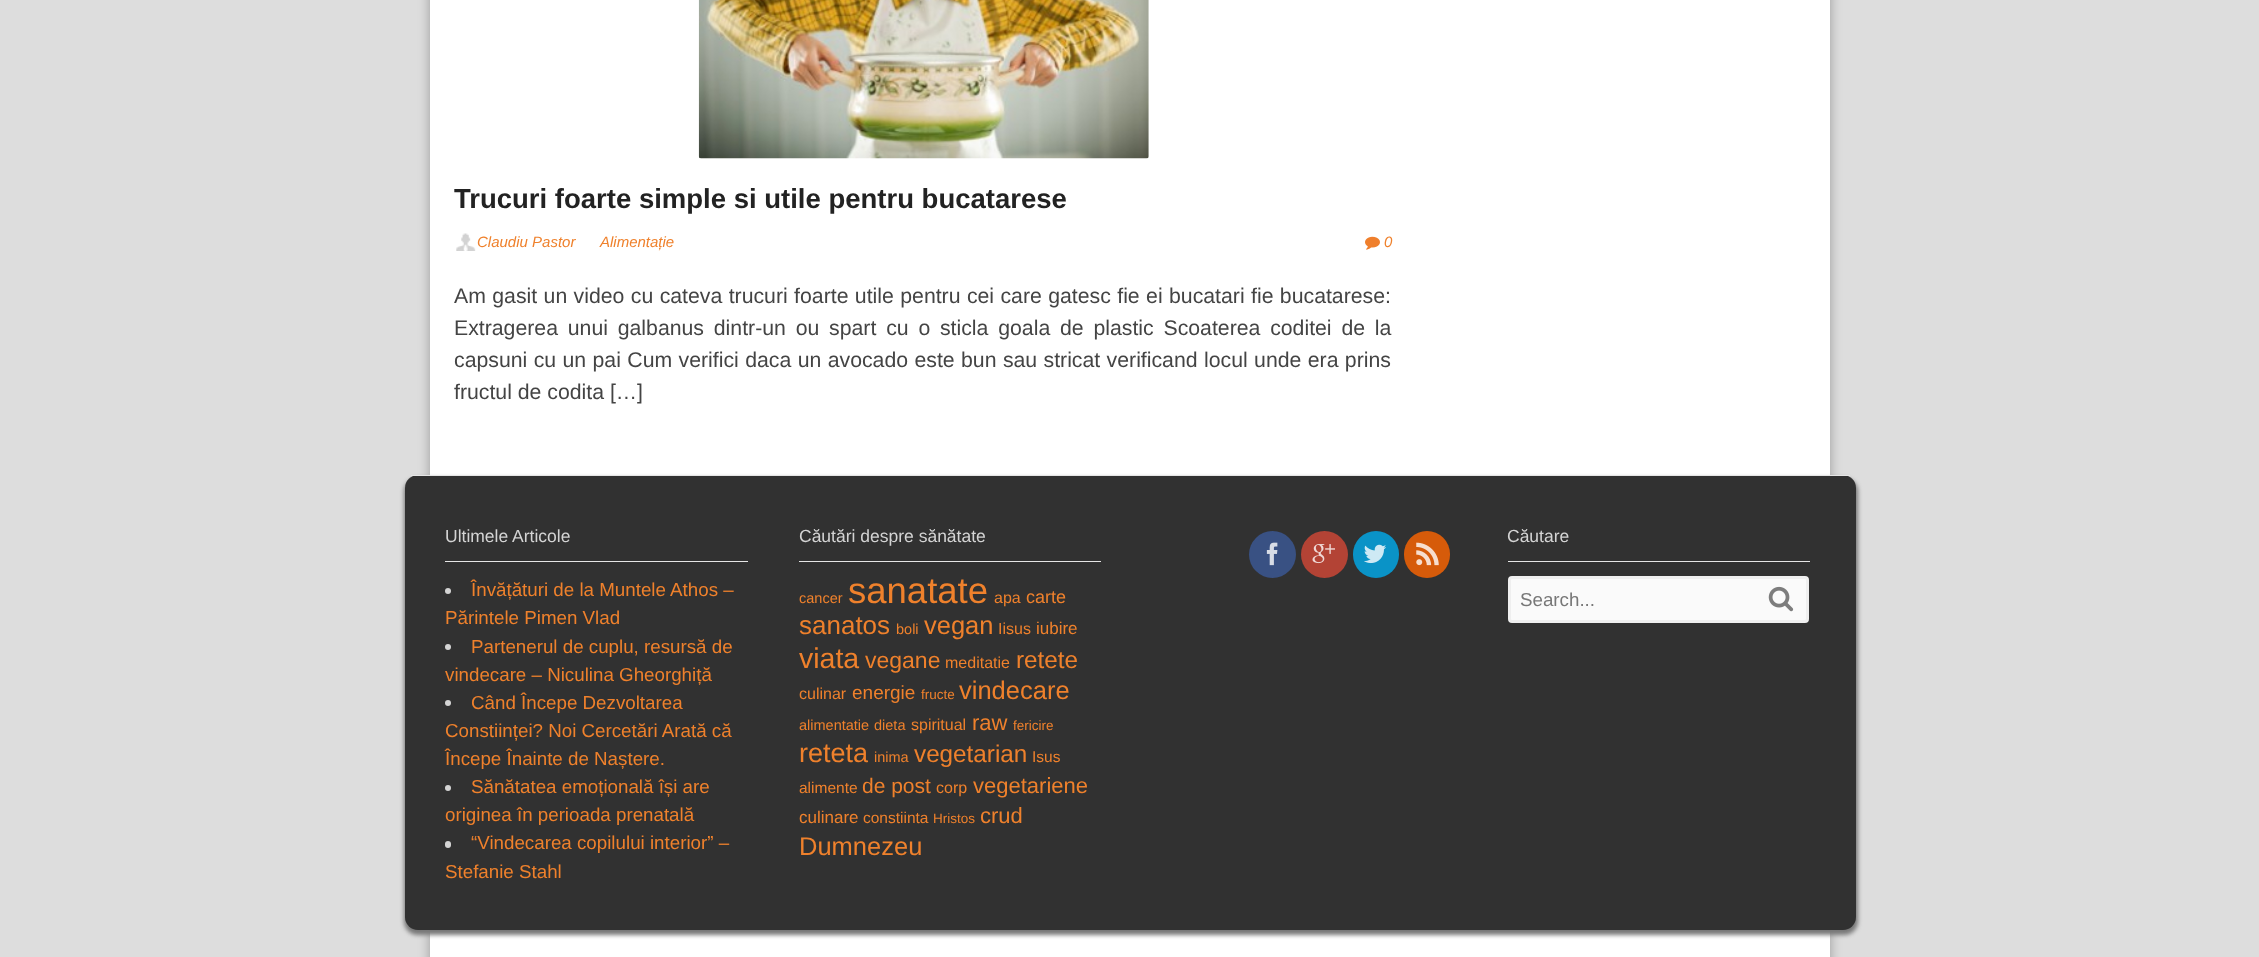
<svg xmlns="http://www.w3.org/2000/svg" width="2259" height="957" viewBox="0 0 2259 957">
  <rect width="100%" height="100%" fill="#ddd"/>
  <path d="M430 -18h1400v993H430z" fill="#0000004d" filter="blur(6px)"/>
  <path d="M430 0h1400v957H430z" fill="#fff"/>
  <image x="698" y="0" width="451" height="159" href="img/1.png"/>
  <image x="456" y="233" width="20" height="18" href="img/2.png"/>
  <image x="1365" y="236" width="15" height="14" href="img/3.png"/>
  <rect x="404" y="478" width="1454" height="457" rx="14" fill="#777" filter="blur(2px)"/>
  <rect x="405" y="475" width="1451" height="455" rx="13" fill="#313131"/>
  <path d="M411 475h1439v1H411z" fill="#e6e6e6"/>
  <path d="M445 561h303v1H445z" fill="#e6e6e6"/>
  <circle cx="448" cy="591" r="3" fill="#d4d4d4"/>
  <circle cx="448" cy="647" r="3" fill="#d4d4d4"/>
  <circle cx="448" cy="703" r="3" fill="#d4d4d4"/>
  <circle cx="448" cy="788" r="3" fill="#d4d4d4"/>
  <rect x="445" y="841" width="6" height="7" rx="3" fill="#d4d4d4"/>
  <path d="M799 561h302v1H799z" fill="#e6e6e6"/>
  <circle cx="1272.5" cy="554.5" r="23.5" fill="#395183"/>
  <image x="1266" y="542" width="12" height="24" href="img/4.png"/>
  <circle cx="1324.5" cy="554.5" r="23.5" fill="#b34335"/>
  <image x="1312" y="544" width="23" height="20" href="img/5.png"/>
  <rect x="1353" y="531" width="46" height="47" rx="23" fill="#0a93c7"/>
  <image x="1364" y="544" width="22" height="20" href="img/6.png"/>
  <rect x="1404" y="531" width="46" height="47" rx="23" fill="#d65b0a"/>
  <image x="1416" y="542" width="23" height="24" href="img/7.png"/>
  <path d="M1508 561h302v1H1508z" fill="#e6e6e6"/>
  <rect x="1509.5" y="577.5" width="298" height="44" rx="2.5" fill="#fafafa" stroke="#efefef" stroke-width="3"/>
  <image x="1768" y="586" width="26" height="26" href="img/8.png"/>
  <text x="454" y="208" font-family="Liberation Sans" font-size="27.5" font-weight="bold" fill="#222">Trucuri foarte simple si utile pentru bucatarese</text>
  <g font-family="Liberation Sans" font-size="15" font-style="italic" fill="#ef812c">
    <text x="477" y="247">Claudiu Pastor</text>
    <text x="600" y="247">Alimentație</text>
    <text x="1384" y="247">0</text>
  </g>
  <g font-family="Liberation Sans" font-size="21.25" fill="#444">
    <text x="454" y="303" word-spacing="0.5">Am gasit un video cu cateva trucuri foarte utile pentru cei care gatesc fie ei bucatari fie bucatarese:</text>
    <text x="454" y="335" word-spacing="3.9">Extragerea unui galbanus dintr-un ou spart cu o sticla goala de plastic Scoaterea coditei de la</text>
    <text x="454" y="367" word-spacing="0.5">capsuni cu un pai Cum verifici daca un avocado este bun sau stricat verificand locul unde era prins</text>
    <text x="454" y="399">fructul de codita […]</text>
  </g>
  <text x="445" y="542" font-family="Liberation Sans" font-size="17.5" fill="#d4d4d4">Ultimele Articole</text>
  <g font-family="Liberation Sans" font-size="18.75" fill="#ef812c">
    <text x="471" y="596">Învățături de la Muntele Athos –</text>
    <text x="445" y="624">Părintele Pimen Vlad</text>
    <text x="471" y="653">Partenerul de cuplu, resursă de</text>
    <text x="445" y="681">vindecare – Niculina Gheorghiță</text>
    <text x="471" y="709">Când Începe Dezvoltarea</text>
    <text x="445" y="737">Constiinței? Noi Cercetări Arată că</text>
    <text x="445" y="765">Începe Înainte de Naștere.</text>
    <text x="471" y="793">Sănătatea emoțională își are</text>
    <text x="445" y="821">originea în perioada prenatală</text>
    <text x="471" y="849">“Vindecarea copilului interior” –</text>
    <text x="445" y="878">Stefanie Stahl</text>
  </g>
  <text x="799" y="542" font-family="Liberation Sans" font-size="17.5" fill="#d4d4d4">Căutări despre sănătate</text>
  <text x="799" y="603" font-family="Liberation Sans" font-size="14.5" fill="#ef812c">cancer</text>
  <text x="848" y="603" font-family="Liberation Sans" font-size="36.5" fill="#ef812c">sanatate</text>
  <text x="994" y="603" font-family="Liberation Sans" font-size="16" fill="#ef812c">apa</text>
  <text x="1026" y="603" font-family="Liberation Sans" font-size="18" fill="#ef812c">carte</text>
  <text x="799" y="634" font-family="Liberation Sans" font-size="26" fill="#ef812c">sanatos</text>
  <text x="896" y="634" font-family="Liberation Sans" font-size="14.5" fill="#ef812c">boli</text>
  <text x="924" y="634" font-family="Liberation Sans" font-size="25.5" fill="#ef812c">vegan</text>
  <text x="998" y="634" font-family="Liberation Sans" font-size="16" fill="#ef812c">Iisus</text>
  <text x="1036" y="634" font-family="Liberation Sans" font-size="17" fill="#ef812c">iubire</text>
  <text x="799" y="668" font-family="Liberation Sans" font-size="28.5" fill="#ef812c">viata</text>
  <text x="865" y="668" font-family="Liberation Sans" font-size="23" fill="#ef812c">vegane</text>
  <text x="945" y="668" font-family="Liberation Sans" font-size="16" fill="#ef812c">meditatie</text>
  <text x="1016" y="668" font-family="Liberation Sans" font-size="24.25" fill="#ef812c">retete</text>
  <text x="799" y="699" font-family="Liberation Sans" font-size="16" fill="#ef812c">culinar</text>
  <text x="852" y="699" font-family="Liberation Sans" font-size="19" fill="#ef812c">energie</text>
  <text x="921" y="699" font-family="Liberation Sans" font-size="13.5" fill="#ef812c">fructe</text>
  <text x="959" y="699" font-family="Liberation Sans" font-size="25.5" fill="#ef812c">vindecare</text>
  <g font-family="Liberation Sans" font-size="14.5" fill="#ef812c">
    <text x="799" y="730">alimentatie</text>
    <text x="874" y="730">dieta</text>
  </g>
  <text x="911" y="730" font-family="Liberation Sans" font-size="16" fill="#ef812c">spiritual</text>
  <text x="972" y="730" font-family="Liberation Sans" font-size="22" fill="#ef812c">raw</text>
  <text x="1013" y="730" font-family="Liberation Sans" font-size="13.5" fill="#ef812c">fericire</text>
  <text x="799" y="762" font-family="Liberation Sans" font-size="27" fill="#ef812c">reteta</text>
  <text x="874" y="762" font-family="Liberation Sans" font-size="14.5" fill="#ef812c">inima</text>
  <text x="914" y="762" font-family="Liberation Sans" font-size="24.25" fill="#ef812c">vegetarian</text>
  <g font-family="Liberation Sans" font-size="15.5" fill="#ef812c">
    <text x="1032" y="762">Isus</text>
    <text x="799" y="793">alimente</text>
  </g>
  <text x="862" y="793" font-family="Liberation Sans" font-size="21" fill="#ef812c">de post</text>
  <text x="936" y="793" font-family="Liberation Sans" font-size="16" fill="#ef812c">corp</text>
  <text x="973" y="793" font-family="Liberation Sans" font-size="22" fill="#ef812c">vegetariene</text>
  <text x="799" y="823" font-family="Liberation Sans" font-size="17" fill="#ef812c">culinare</text>
  <text x="863" y="823" font-family="Liberation Sans" font-size="15.5" fill="#ef812c">constiinta</text>
  <text x="933" y="823" font-family="Liberation Sans" font-size="13.5" fill="#ef812c">Hristos</text>
  <text x="980" y="823" font-family="Liberation Sans" font-size="22" fill="#ef812c">crud</text>
  <text x="799" y="855" font-family="Liberation Sans" font-size="25.5" fill="#ef812c">Dumnezeu</text>
  <text x="1507" y="542" font-family="Liberation Sans" font-size="17.5" fill="#d4d4d4">Căutare</text>
  <text x="1520" y="606" font-family="Liberation Sans" font-size="18.75" fill="#777">Search...</text>
</svg>
